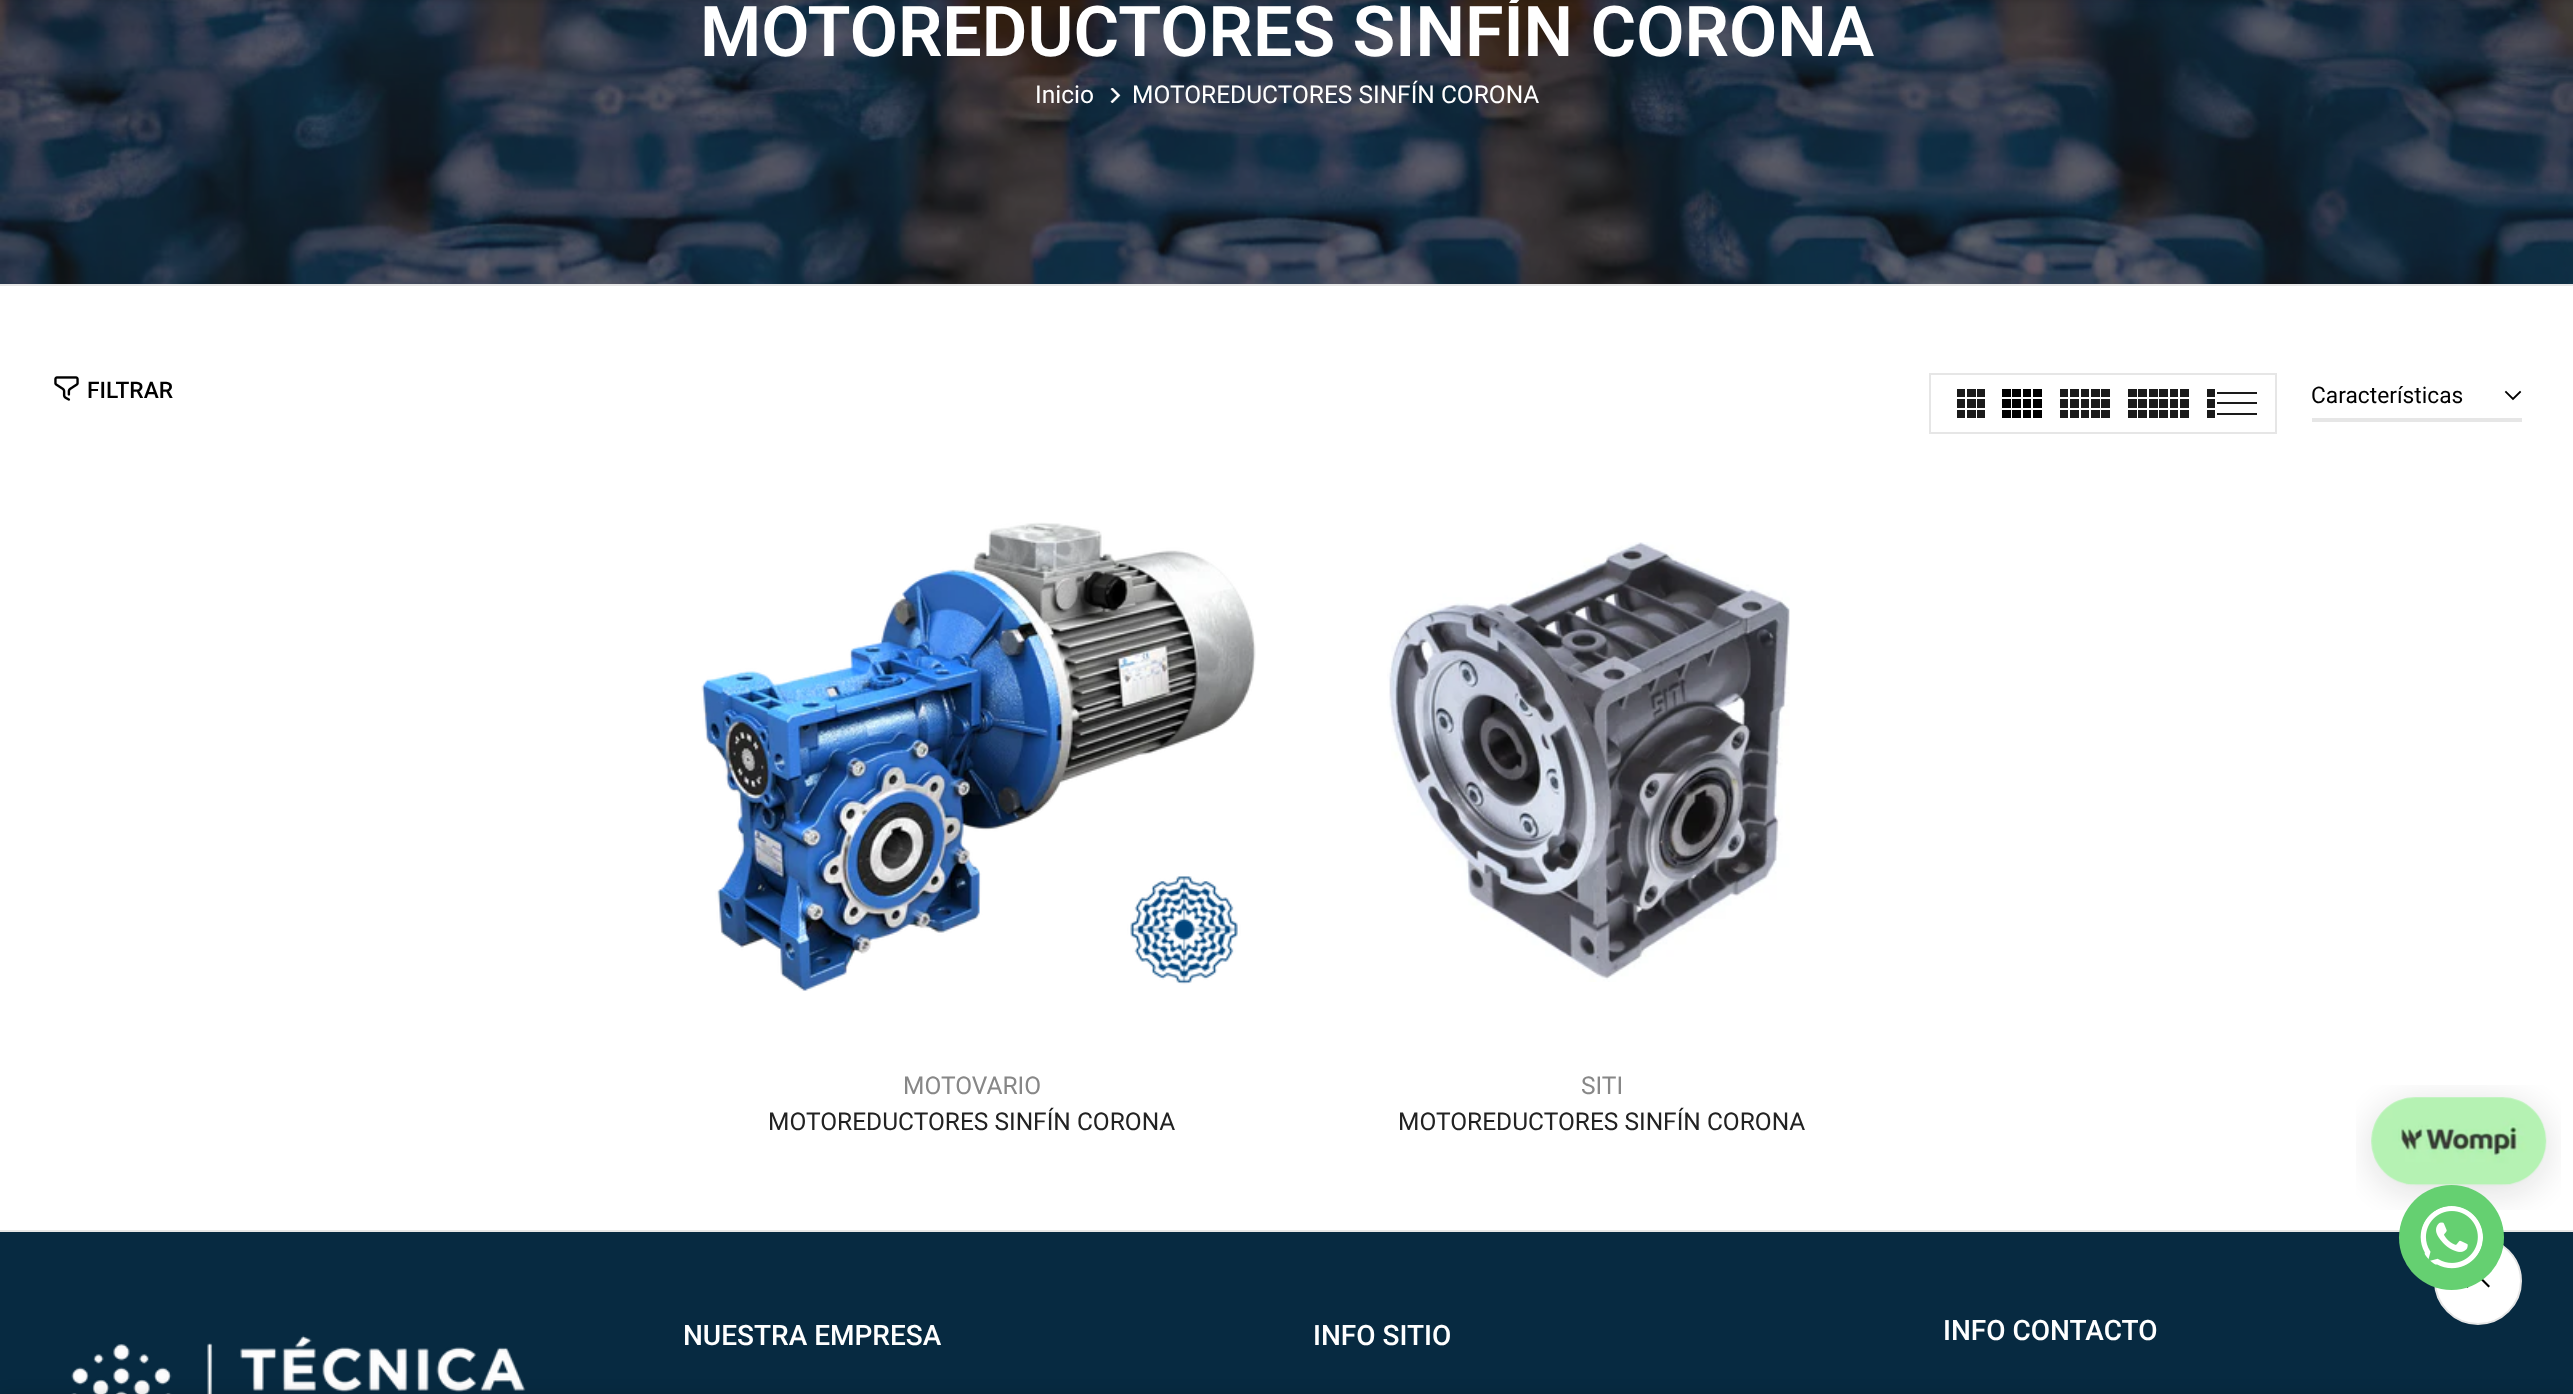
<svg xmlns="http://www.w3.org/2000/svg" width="2573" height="1394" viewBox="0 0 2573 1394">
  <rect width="100%" height="100%" fill="#fff"/>
  <image x="0" y="0" width="2573" height="284" href="img/1.png"/>
  <path d="M0 -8h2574v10H0z" fill="#0000001a" filter="blur(2.5px)"/>
  <path d="M0 284h2573v2H0z" fill="#e6e6e6"/>
  <image x="1110" y="88" width="11" height="15" href="img/2.png"/>
  <image x="54" y="376" width="25" height="25" href="img/3.png"/>
  <path d="M1930 374h346v59H1930z" fill="none" stroke="#e6e6e6" stroke-width="2"/>
  <image x="1957" y="389" width="28" height="29" href="img/4.png"/>
  <image x="2002" y="389" width="40" height="29" href="img/5.png"/>
  <image x="2060" y="389" width="50" height="29" href="img/6.png"/>
  <image x="2128" y="389" width="61" height="29" href="img/7.png"/>
  <path d="M2207 389h8v8H2207z" fill="#1a1a1a"/>
  <path d="M2207 399h8v9H2207z" fill="#1a1a1a"/>
  <path d="M2207 410h8v8H2207z" fill="#1a1a1a"/>
  <path d="M2217 392h40v2H2217z" fill="#1a1a1a"/>
  <path d="M2217 402h40v2H2217z" fill="#1a1a1a"/>
  <path d="M2217 413h40v2H2217z" fill="#1a1a1a"/>
  <path d="M2312 418h210v4H2312z" fill="#e6e6e6"/>
  <path d="M2520 392L2513 399L2506 392" fill="none" stroke="#000" stroke-width="1.8" stroke-linecap="square"/>
  <image x="701" y="522" width="555" height="469" href="img/8.png"/>
  <image x="1387" y="542" width="403" height="440" href="img/9.png"/>
  <image x="2356" y="1085" width="205" height="125" href="img/10.png"/>
  <path d="M0 1232h2573v162H0z" fill="#072a41"/>
  <path d="M0 1230h2573v2H0z" fill="#e6e6e6"/>
  <image x="71" y="1335" width="455" height="59" href="img/11.png"/>
  <circle cx="2478" cy="1281" r="43" fill="#fff" stroke="#e6e6e6" stroke-width="2"/>
  <path d="M2479.5 1275.5L2478 1274L2466 1286L2467.5 1288L2478 1277L2488.5 1287.5L2490 1286L2484 1280Z" fill="#000"/>
  <circle cx="2451.5" cy="1237.5" r="52.5" fill="#65d071"/>
  <image x="2420" y="1206" width="63" height="63" href="img/12.png"/>
  <path d="M0 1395h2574v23H0z" fill="#00000024" filter="blur(8px)"/>
  <text x="700" y="56" font-family="Roboto" font-size="70" font-weight="600" fill="#fff">MOTOREDUCTORES SINFÍN CORONA</text>
  <g font-family="Roboto" font-size="24.5" fill="#fff">
    <text x="1035" y="103">Inicio</text>
    <text x="1132" y="103">MOTOREDUCTORES SINFÍN CORONA</text>
  </g>
  <text x="87" y="398" font-family="Roboto" font-size="22.75" font-weight="500" fill="#000">FILTRAR</text>
  <text x="2311" y="403" font-family="Roboto" font-size="22.75" fill="#000">Características</text>
  <text x="903" y="1094" font-family="Roboto" font-size="24.5" fill="#878787">MOTOVARIO</text>
  <text x="768" y="1130" font-family="Roboto" font-size="24.5" fill="#222">MOTOREDUCTORES SINFÍN CORONA</text>
  <text x="1581" y="1094" font-family="Roboto" font-size="24.5" fill="#878787">SITI</text>
  <text x="1398" y="1130" font-family="Roboto" font-size="24.5" fill="#222">MOTOREDUCTORES SINFÍN CORONA</text>
  <g font-family="Roboto" font-size="28" font-weight="500" fill="#fff">
    <text x="683" y="1345">NUESTRA EMPRESA</text>
    <text x="1313" y="1345">INFO SITIO</text>
    <text x="1943" y="1340">INFO CONTACTO</text>
  </g>
</svg>
